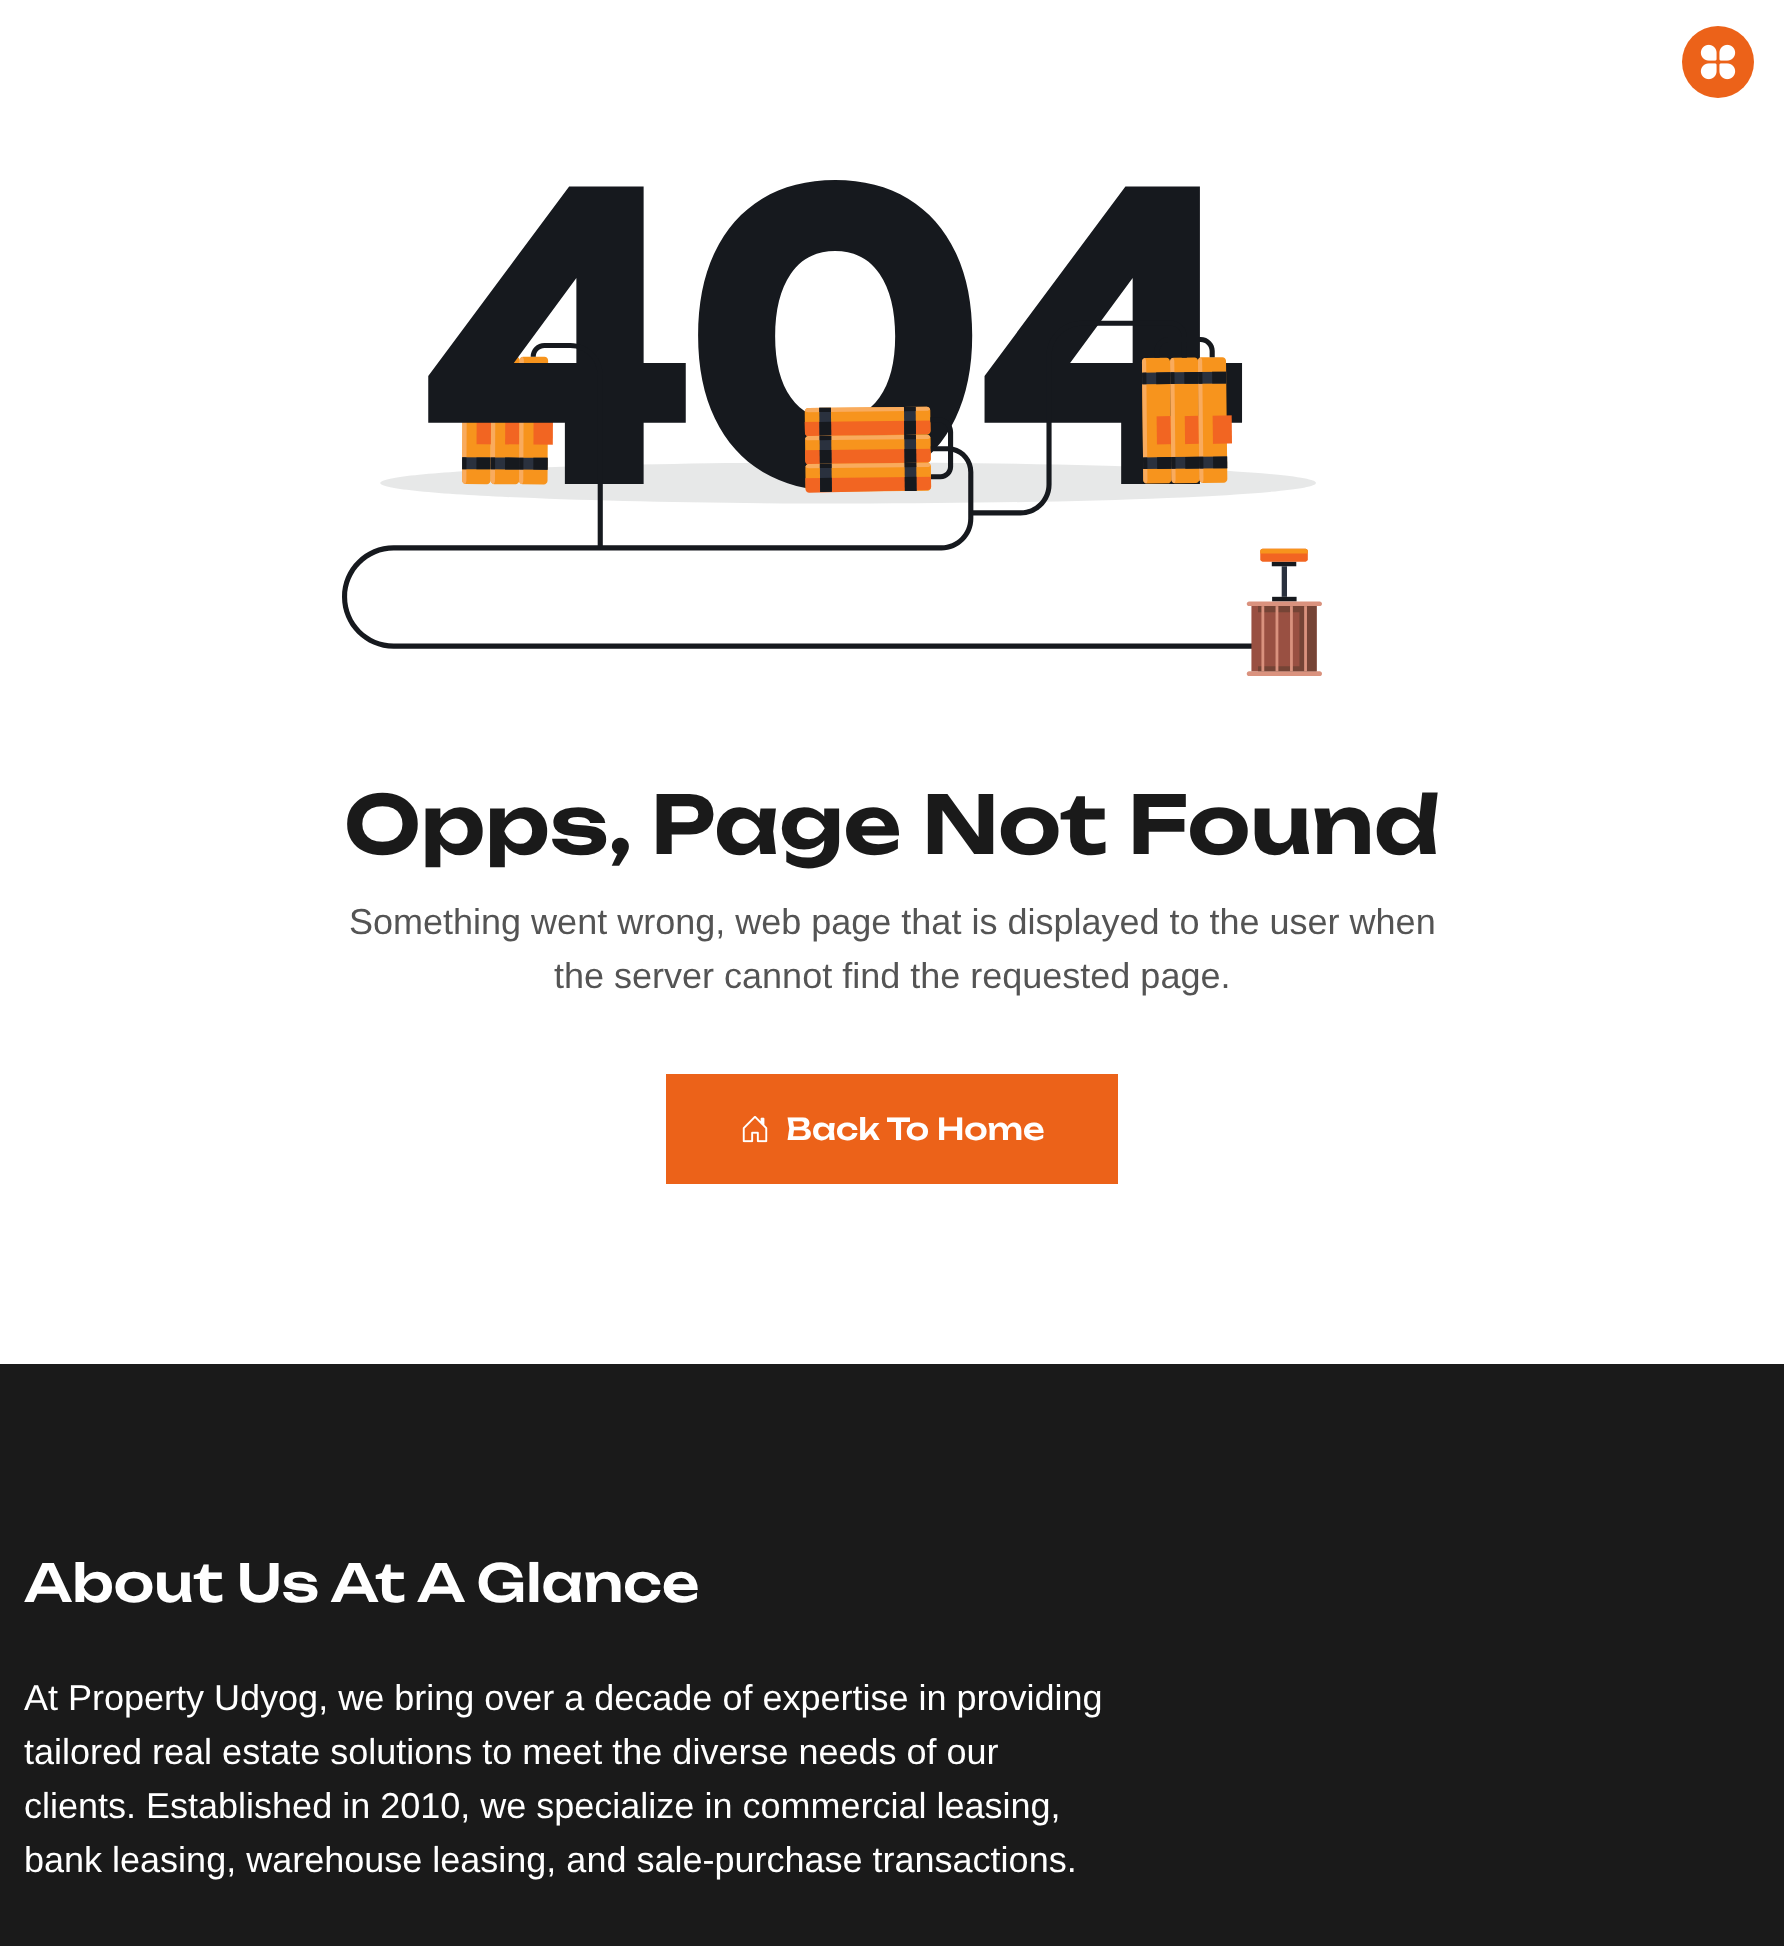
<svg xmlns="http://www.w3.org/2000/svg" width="1784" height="1946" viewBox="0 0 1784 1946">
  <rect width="100%" height="100%" fill="#fff"/>
  <circle cx="1718" cy="62" r="36" fill="#ec6219"/>
  <image x="1700" y="44" width="36" height="36" href="img/1.png"/>
  <image x="342" y="180" width="980" height="496" href="img/2.png"/>
  <path d="M666 1074h452v110H666z" fill="#ec6219"/>
  <image x="742" y="1116" width="26" height="27" href="img/3.png"/>
  <path d="M0 1364h1784v582H0z" fill="#1a1a1a"/>
  <text x="344" y="854" font-family="Unbounded" font-size="80" font-weight="600" fill="#1a1a1a">Opps, Page Not Found</text>
  <g font-family="Liberation Sans" font-size="36" fill="#545454">
    <text x="349" y="934">Something went wrong, web page that is displayed to the user when</text>
    <text x="554" y="988">the server cannot find the requested page.</text>
  </g>
  <text x="786" y="1140" font-family="Unbounded" font-size="30" font-weight="500" fill="#fff">Back To Home</text>
  <text x="24" y="1602" font-family="Unbounded" font-size="52" font-weight="500" fill="#fff">About Us At A Glance</text>
  <g font-family="Liberation Sans" font-size="36" fill="#fff">
    <text x="24" y="1710">At Property Udyog, we bring over a decade of expertise in providing</text>
    <text x="24" y="1764">tailored real estate solutions to meet the diverse needs of our</text>
    <text x="24" y="1818">clients. Established in 2010, we specialize in commercial leasing,</text>
    <text x="24" y="1872">bank leasing, warehouse leasing, and sale-purchase transactions.</text>
  </g>
</svg>
